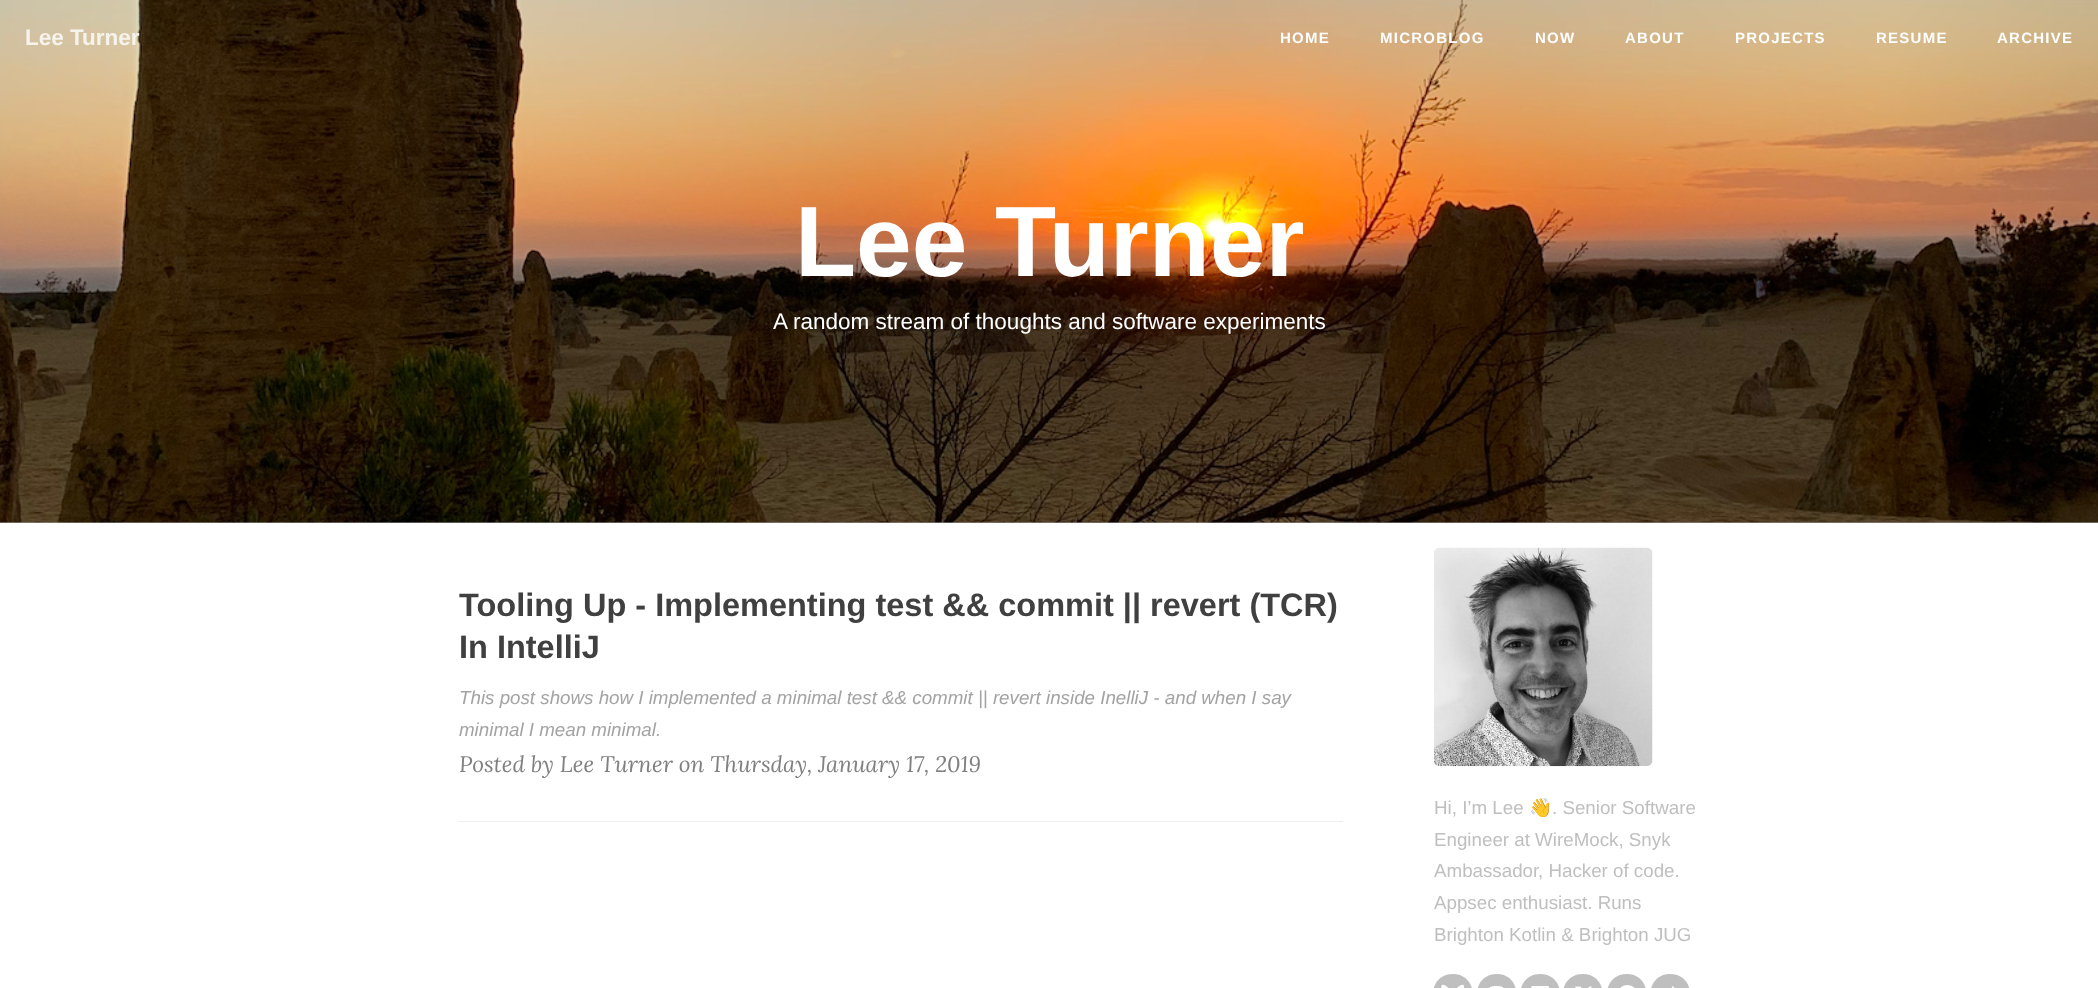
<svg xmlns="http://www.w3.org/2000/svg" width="2098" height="988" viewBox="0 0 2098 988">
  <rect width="100%" height="100%" fill="#fff"/>
  <path d="M0 522h2098v1H0z" fill="#a3a3a3"/>
  <image x="0" y="0" width="2098" height="523" href="img/1.png"/>
  <path d="M459 821h884v1H459z" fill="#eee"/>
  <image x="1433" y="547" width="220" height="220" href="img/2.png"/>
  <path d="M1453 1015C1480 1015 1479 974 1453 974C1426 974 1426 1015 1453 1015Z" fill="#bfbfbf"/>
  <image x="1441" y="984" width="24" height="4" href="img/3.png"/>
  <path d="M1497 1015C1523 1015 1523 974 1497 974C1470 974 1470 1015 1497 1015Z" fill="#bfbfbf"/>
  <image x="1489" y="986" width="15" height="2" href="img/4.png"/>
  <path d="M1540 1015C1567 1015 1567 974 1540 974C1514 974 1513 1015 1540 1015Z" fill="#bfbfbf"/>
  <image x="1531" y="986" width="18" height="2" href="img/5.png"/>
  <path d="M1583 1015C1610 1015 1609 974 1583 974C1556 974 1556 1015 1583 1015Z" fill="#bfbfbf"/>
  <image x="1575" y="986" width="17" height="2" href="img/6.png"/>
  <path d="M1627 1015C1653 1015 1653 974 1627 974C1600 974 1600 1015 1627 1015Z" fill="#bfbfbf"/>
  <image x="1620" y="985" width="15" height="3" href="img/7.png"/>
  <path d="M1670 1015C1697 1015 1697 974 1670 974C1644 974 1643 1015 1670 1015Z" fill="#bfbfbf"/>
  <image x="1671" y="986" width="4" height="2" href="img/8.png"/>
  <text x="25" y="45" font-family="Liberation Sans" font-size="22.5" font-weight="bold" fill="#f6f3ec">Lee Turner</text>
  <g font-family="Liberation Sans" font-size="15" font-weight="bold" letter-spacing="1.25" fill="#fff">
    <text x="1280" y="43">HOME</text>
    <text x="1380" y="43">MICROBLOG</text>
    <text x="1535" y="43">NOW</text>
    <text x="1625" y="43">ABOUT</text>
    <text x="1735" y="43">PROJECTS</text>
    <text x="1876" y="43">RESUME</text>
    <text x="1997" y="43">ARCHIVE</text>
  </g>
  <text x="795" y="276" font-family="Liberation Sans" font-size="100" font-weight="bold" fill="#fff">Lee Turner</text>
  <text x="773" y="329" font-family="Liberation Sans" font-size="22.5" fill="#fff">A random stream of thoughts and software experiments</text>
  <g font-family="Liberation Sans" font-size="32.5" font-weight="bold" fill="#404040">
    <text x="459" y="616">Tooling Up - Implementing test &amp;&amp; commit || revert (TCR)</text>
    <text x="459" y="658">In IntelliJ</text>
  </g>
  <g font-family="Liberation Sans" font-size="18.75" font-style="italic" fill="#a3a3a3">
    <text x="459" y="704">This post shows how I implemented a minimal test &amp;&amp; commit || revert inside InelliJ - and when I say</text>
    <text x="459" y="736">minimal I mean minimal.</text>
  </g>
  <text x="459" y="772" font-family="Lora" font-size="22.5" font-style="italic" fill="#808080">Posted by Lee Turner on Thursday, January 17, 2019</text>
  <text x="1434" y="814" font-family="Liberation Sans" font-size="18.75" fill="#bfbfbf">Hi, I’m Lee</text>
  <text x="1529" y="814" font-family="Noto Color Emoji" font-size="18.75" fill="#bfbfbf">👋</text>
  <g font-family="Liberation Sans" font-size="18.75" fill="#bfbfbf">
    <text x="1552" y="814">. Senior Software</text>
    <text x="1434" y="846">Engineer at WireMock, Snyk</text>
    <text x="1434" y="877">Ambassador</text>
    <text x="1538" y="877">, Hacker of code.</text>
    <text x="1434" y="909">Appsec enthusiast. Runs</text>
    <text x="1434" y="941">Brighton Kotlin &amp; Brighton JUG</text>
  </g>
</svg>
